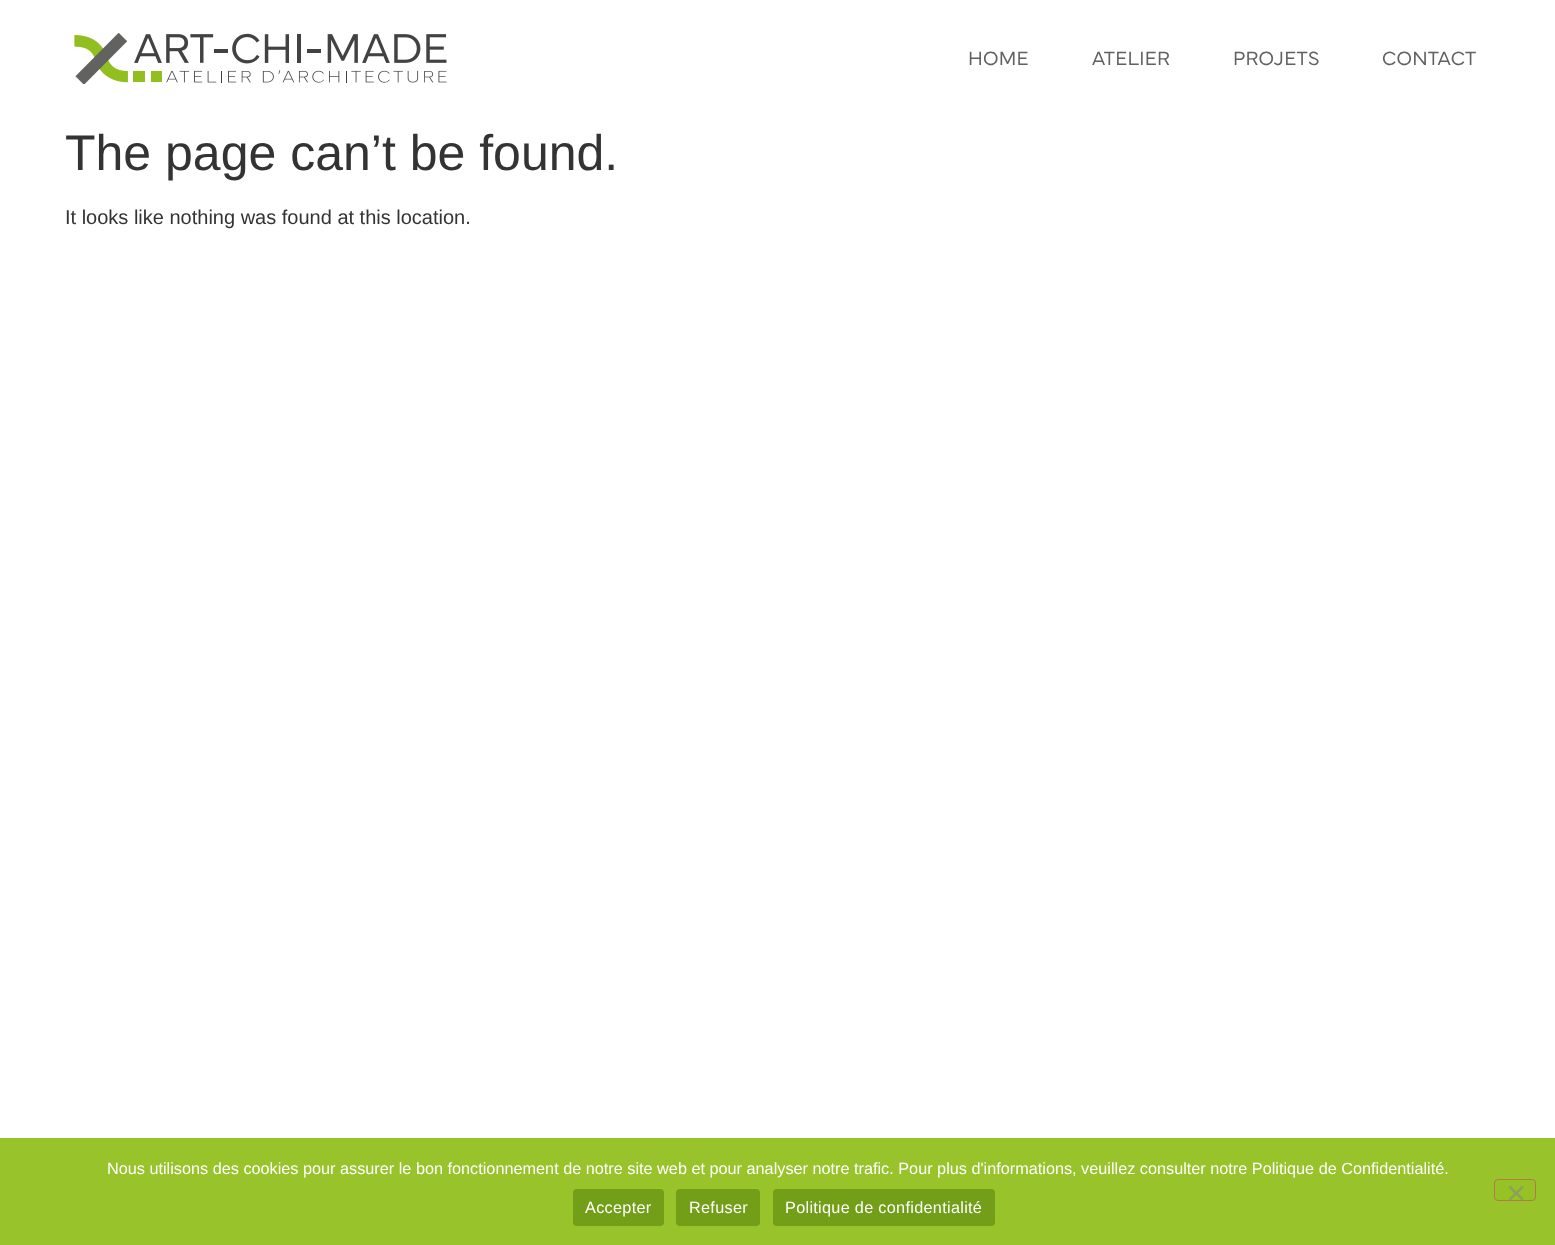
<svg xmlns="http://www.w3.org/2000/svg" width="1555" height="1245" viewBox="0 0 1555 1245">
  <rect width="100%" height="100%" fill="#fff"/>
  <image x="74" y="32" width="373" height="52" href="img/1.png"/>
  <path d="M0 1138h1555v107H0z" fill="#98c32b"/>
  <rect x="1494.5" y="1179.5" width="41" height="21" rx="3.5" fill="#96c226" stroke="#b27b49"/>
  <path d="M1522 1185.5L1524 1187.5L1510.5 1200.5L1508.5 1199Z" fill="#8ca256"/>
  <path d="M1508.5 1187.5L1510.5 1185.5L1524 1199L1522 1200.5Z" fill="#8ca256"/>
  <rect x="573" y="1189" width="91" height="37" rx="4" fill="#739e17"/>
  <rect x="676" y="1189" width="84" height="37" rx="4" fill="#739e17"/>
  <rect x="773" y="1189" width="222" height="37" rx="4" fill="#739e17"/>
  <g font-family="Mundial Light" font-size="20" font-weight="300" letter-spacing="0.25" fill="#616161">
    <text x="968" y="65">HOME</text>
    <text x="1092" y="65">ATELIER</text>
    <text x="1233" y="65">PROJETS</text>
    <text x="1382" y="65">CONTACT</text>
  </g>
  <text x="65" y="170" font-family="Liberation Sans" font-size="50" fill="#333">The page can’t be found.</text>
  <text x="65" y="224" font-family="Liberation Sans" font-size="20" fill="#333">It looks like nothing was found at this location.</text>
  <text x="107" y="1174" font-family="Liberation Sans" font-size="16.25" fill="#fff">Nous utilisons des cookies pour assurer le bon fonctionnement de notre site web et pour analyser notre trafic. Pour plus d'informations, veuillez consulter notre Politique de Confidentialité.</text>
  <g font-family="Liberation Sans" font-size="16.25" letter-spacing="0.3" fill="#fff">
    <text x="585" y="1213">Accepter</text>
    <text x="689" y="1213">Refuser</text>
    <text x="785" y="1213">Politique de confidentialité</text>
  </g>
</svg>
